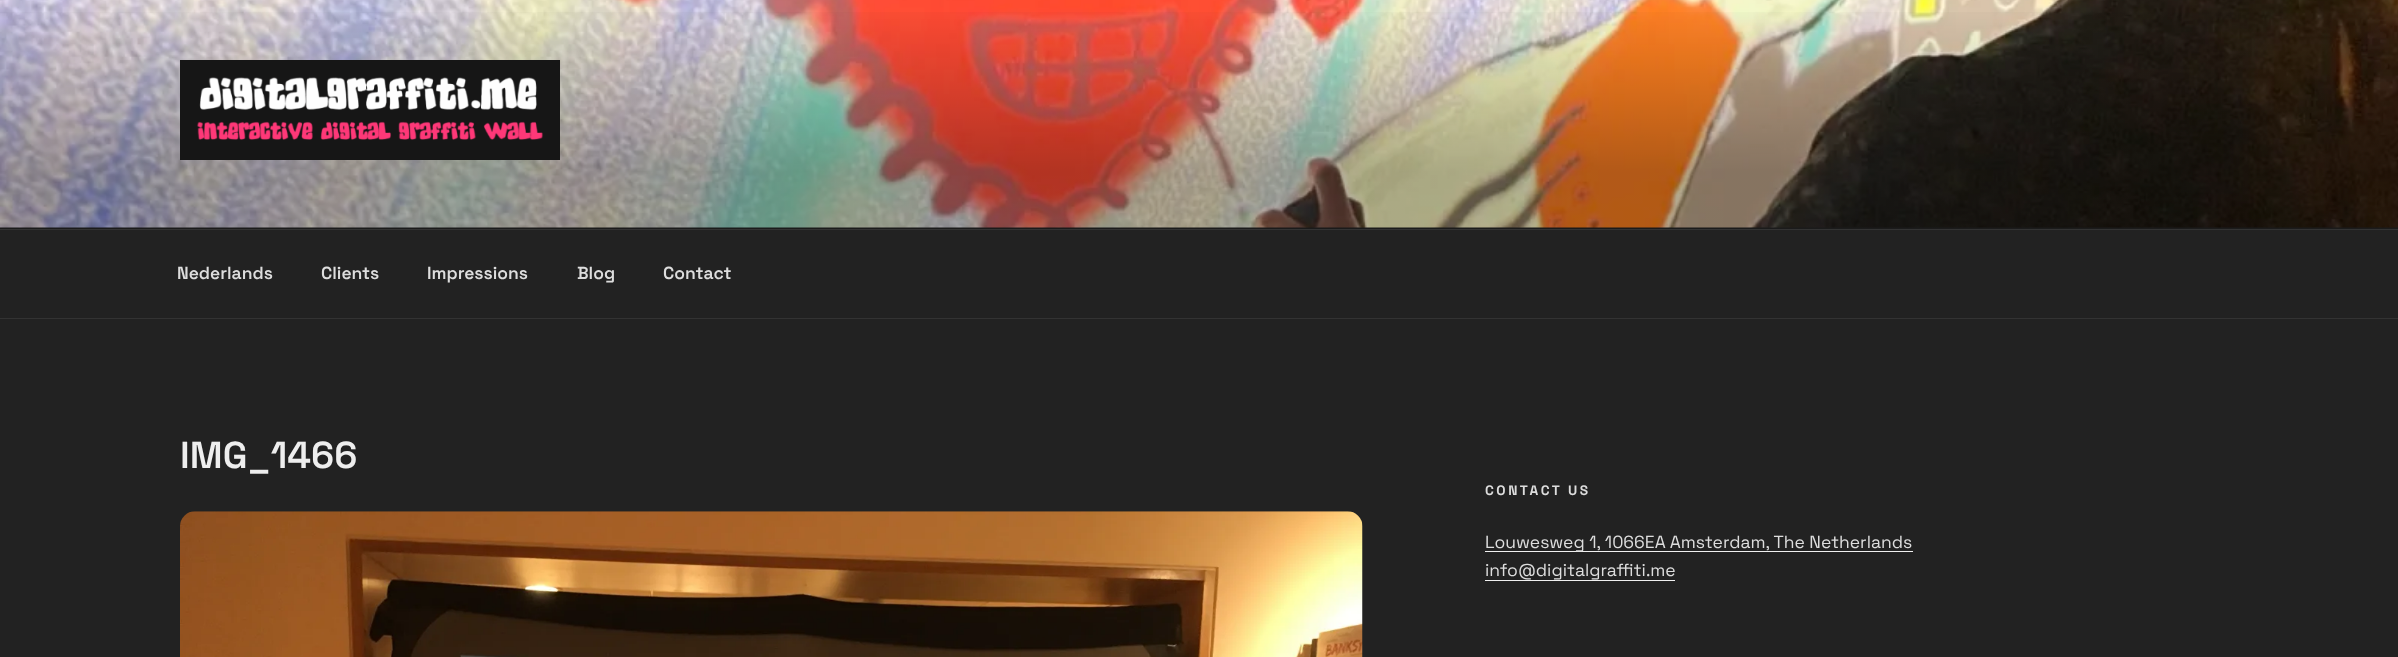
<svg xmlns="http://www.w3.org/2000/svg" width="2398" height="657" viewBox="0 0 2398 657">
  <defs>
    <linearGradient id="g1" gradientUnits="userSpaceOnUse" x1="1199" y1="0" x2="1199" y2="229"><stop offset="0" stop-color="#000" stop-opacity="0"/><stop offset="0.75" stop-color="#000" stop-opacity="0.3"/><stop offset="1" stop-color="#000" stop-opacity="0.3"/></linearGradient>
  </defs>
  <rect width="100%" height="100%" fill="#222"/>
  <path d="M0 227h2398v2H0z" fill="#262626"/>
  <image x="0" y="0" width="2398" height="228" href="img/1.png"/>
  <path d="M0 12h2398v217H0z" fill="url(#g1)"/>
  <image x="180" y="60" width="380" height="100" href="img/2.png"/>
  <path d="M0 229h2398v1H0z" fill="#333"/>
  <path d="M0 318h2398v1H0z" fill="#333"/>
  <image x="180" y="511" width="1183" height="146" href="img/3.png"/>
  <path d="M1485 551h428v1H1485z" fill="#f0f0f0"/>
  <path d="M1485 580h190v1H1485z" fill="#f0f0f0"/>
  <g font-family="Space Grotesk" font-size="17.5" font-weight="600" fill="#ddd">
    <text x="177" y="279">Nederlands</text>
    <text x="321" y="279">Clients</text>
    <text x="427" y="279">Impressions</text>
    <text x="577" y="279">Blog</text>
    <text x="663" y="279">Contact</text>
  </g>
  <text x="180" y="468" font-family="Space Grotesk" font-size="37.5" font-weight="600" fill="#eee">IMG_1466</text>
  <text x="1485" y="495" font-family="Space Grotesk" font-size="13.75" font-weight="bold" letter-spacing="2.5" fill="#ddd">CONTACT US</text>
  <g font-family="Space Grotesk" font-size="17.5" fill="#ddd">
    <text x="1485" y="548">Louwesweg 1, 1066EA Amsterdam, The Netherlands</text>
    <text x="1485" y="576">info@digitalgraffiti.me</text>
  </g>
</svg>
